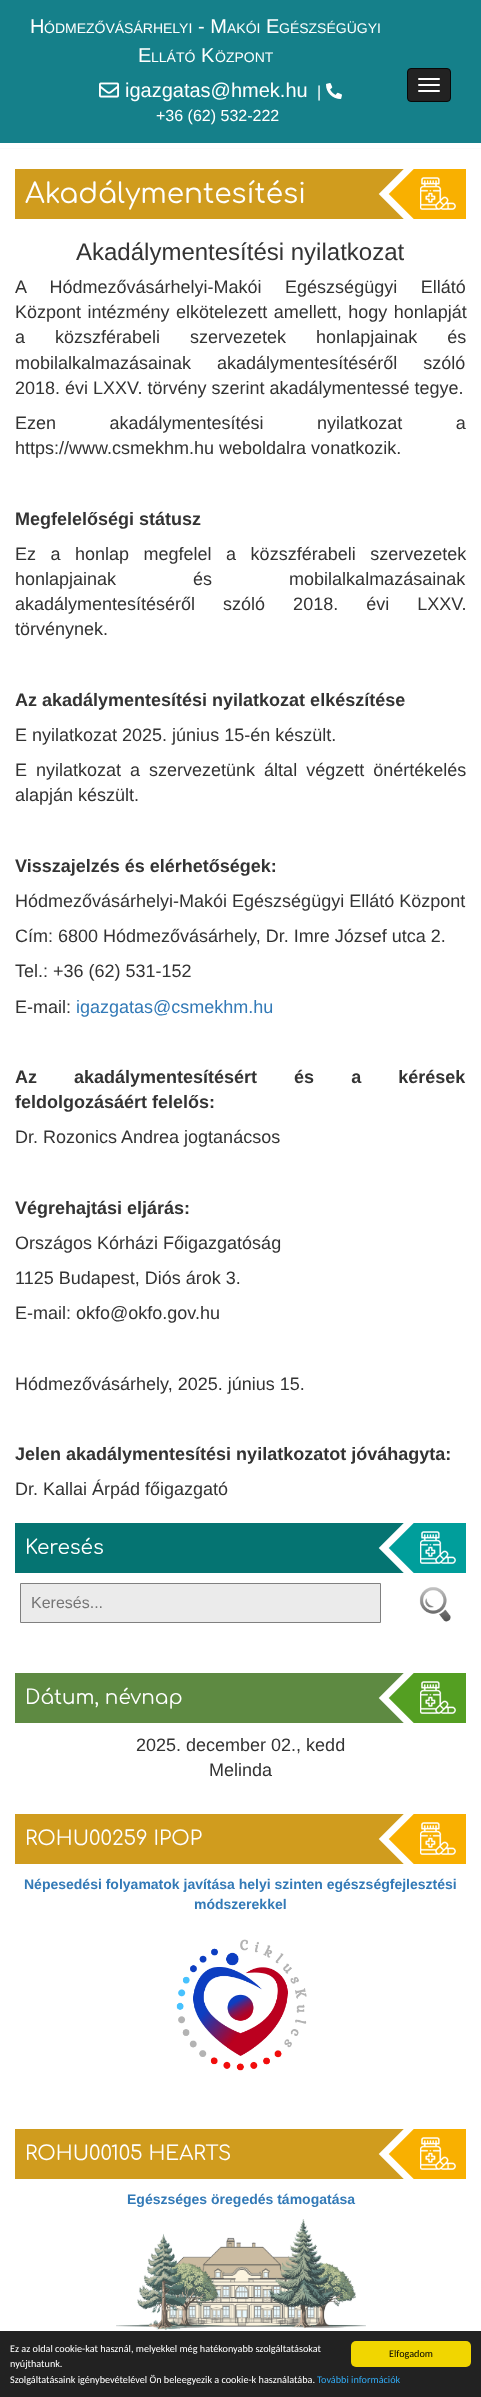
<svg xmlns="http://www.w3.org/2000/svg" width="481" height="2397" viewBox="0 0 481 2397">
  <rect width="100%" height="100%" fill="#fff"/>
  <path d="M0 0h481v143H0z" fill="#15808a"/>
  <image x="99" y="82" width="20" height="16" href="img/1.png"/>
  <image x="326" y="83" width="16" height="16" href="img/2.png"/>
  <path d="M0 148h481v1H0z" fill="#fbfbfb"/>
  <rect x="407.5" y="68.5" width="43" height="33" rx="3.5" fill="#222" stroke="#080808"/>
  <rect x="418" y="78" width="22" height="2" rx="1" fill="#fff"/>
  <rect x="418" y="84" width="22" height="2" rx="1" fill="#fff"/>
  <rect x="418" y="90" width="22" height="2" rx="1" fill="#fff"/>
  <path d="M15 169h389v50H15z" fill="#d09c1e"/>
  <image x="378" y="169" width="88" height="50" href="img/3.png"/>
  <path d="M15 1523h389v50H15z" fill="#057472"/>
  <image x="378" y="1523" width="88" height="50" href="img/4.png"/>
  <path d="M20.5 1583.5h360v39H20.5z" fill="#ebebeb" stroke="#808080"/>
  <image x="419" y="1587" width="32" height="35" href="img/5.png"/>
  <path d="M15 1673h389v50H15z" fill="#5e8a42"/>
  <image x="378" y="1673" width="88" height="50" href="img/6.png"/>
  <path d="M15 1814h389v50H15z" fill="#d09c1e"/>
  <image x="378" y="1814" width="88" height="50" href="img/3.png"/>
  <image x="176" y="1939" width="131" height="132" href="img/7.png"/>
  <path d="M15 2129h389v50H15z" fill="#d09c1e"/>
  <image x="378" y="2129" width="88" height="50" href="img/3.png"/>
  <image x="116" y="2219" width="250" height="112" href="img/8.png"/>
  <path d="M0 2331h481v66H0z" fill="#222"/>
  <rect x="351" y="2341" width="120" height="26" rx="5" fill="#f1d600"/>
  <text x="30" y="33" font-family="Liberation Sans" font-size="20" fill="#fff">H</text>
  <text x="44" y="33" font-family="Liberation Sans" font-size="14" fill="#fff">ÓDMEZŐVÁSÁRHELYI</text>
  <text x="198" y="33" font-family="Liberation Sans" font-size="20" fill="#fff">- M</text>
  <text x="227" y="33" font-family="Liberation Sans" font-size="14" fill="#fff">AKÓI</text>
  <text x="266" y="33" font-family="Liberation Sans" font-size="20" fill="#fff">E</text>
  <text x="279" y="33" font-family="Liberation Sans" font-size="14" fill="#fff">GÉSZSÉGÜGYI</text>
  <text x="138" y="62" font-family="Liberation Sans" font-size="20" fill="#fff">E</text>
  <text x="151" y="62" font-family="Liberation Sans" font-size="14" fill="#fff">LLÁTÓ</text>
  <text x="201" y="62" font-family="Liberation Sans" font-size="20" fill="#fff">K</text>
  <text x="215" y="62" font-family="Liberation Sans" font-size="14" fill="#fff">ÖZPONT</text>
  <text x="125" y="97" font-family="Liberation Sans" font-size="20" fill="#fff">igazgatas@hmek.hu</text>
  <g font-family="Liberation Sans" font-size="16" fill="#fff">
    <text x="317" y="97">|</text>
    <text x="156" y="121">+36 (62) 532-222</text>
  </g>
  <text x="25" y="203" font-family="Comfortaa" font-size="28" fill="#fff">Akadálymentesítési</text>
  <text x="76" y="260" font-family="Liberation Sans" font-size="24" fill="#333">Akadálymentesítési nyilatkozat</text>
  <g font-family="Liberation Sans" font-size="18" fill="#333">
    <text x="15" y="293" word-spacing="18.5">A Hódmezővásárhelyi-Makói Egészségügyi Ellátó</text>
    <text x="15" y="318" word-spacing="1.5">Központ intézmény elkötelezett amellett, hogy honlapját</text>
    <text x="15" y="343" word-spacing="25">a közszférabeli szervezetek honlapjainak és</text>
    <text x="15" y="369" word-spacing="21">mobilalkalmazásainak akadálymentesítéséről szóló</text>
    <text x="15" y="394">2018. évi LXXV. törvény szerint akadálymentessé tegye.</text>
    <text x="15" y="429" word-spacing="48.5">Ezen akadálymentesítési nyilatkozat a</text>
    <text x="15" y="454">https://www.csmekhm.hu weboldalra vonatkozik.</text>
  </g>
  <text x="15" y="525" font-family="Liberation Sans" font-size="18" font-weight="bold" fill="#333">Megfelelőségi státusz</text>
  <g font-family="Liberation Sans" font-size="18" fill="#333">
    <text x="15" y="560" word-spacing="9.5">Ez a honlap megfelel a közszférabeli szervezetek</text>
    <text x="15" y="585" word-spacing="72">honlapjainak és mobilalkalmazásainak</text>
    <text x="15" y="610" word-spacing="23">akadálymentesítéséről szóló 2018. évi LXXV.</text>
    <text x="15" y="635">törvénynek.</text>
  </g>
  <text x="15" y="706" font-family="Liberation Sans" font-size="18" font-weight="bold" fill="#333">Az akadálymentesítési nyilatkozat elkészítése</text>
  <g font-family="Liberation Sans" font-size="18" fill="#333">
    <text x="15" y="741">E nyilatkozat 2025. június 15-én készült.</text>
    <text x="15" y="776" word-spacing="4">E nyilatkozat a szervezetünk által végzett önértékelés</text>
    <text x="15" y="801">alapján készült.</text>
  </g>
  <text x="15" y="872" font-family="Liberation Sans" font-size="18" font-weight="bold" fill="#333">Visszajelzés és elérhetőségek:</text>
  <g font-family="Liberation Sans" font-size="18" fill="#333">
    <text x="15" y="907">Hódmezővásárhelyi-Makói Egészségügyi Ellátó Központ</text>
    <text x="15" y="942">Cím: 6800 Hódmezővásárhely, Dr. Imre József utca 2.</text>
    <text x="15" y="977">Tel.: +36 (62) 531-152</text>
    <text x="15" y="1013">E-mail:</text>
  </g>
  <text x="76" y="1013" font-family="Liberation Sans" font-size="18" fill="#337ab7">igazgatas@csmekhm.hu</text>
  <g font-family="Liberation Sans" font-size="18" font-weight="bold" fill="#333">
    <text x="15" y="1083" word-spacing="32">Az akadálymentesítésért és a kérések</text>
    <text x="15" y="1108">feldolgozásáért felelős:</text>
  </g>
  <text x="15" y="1143" font-family="Liberation Sans" font-size="18" fill="#333">Dr. Rozonics Andrea jogtanácsos</text>
  <text x="15" y="1214" font-family="Liberation Sans" font-size="18" font-weight="bold" fill="#333">Végrehajtási eljárás:</text>
  <g font-family="Liberation Sans" font-size="18" fill="#333">
    <text x="15" y="1249">Országos Kórházi Főigazgatóság</text>
    <text x="15" y="1284">1125 Budapest, Diós árok 3.</text>
    <text x="15" y="1319">E-mail: okfo@okfo.gov.hu</text>
    <text x="15" y="1390">Hódmezővásárhely, 2025. június 15.</text>
  </g>
  <text x="15" y="1460" font-family="Liberation Sans" font-size="18" font-weight="bold" fill="#333">Jelen akadálymentesítési nyilatkozatot jóváhagyta:</text>
  <text x="15" y="1495" font-family="Liberation Sans" font-size="18" fill="#333">Dr. Kallai Árpád főigazgató</text>
  <text x="25" y="1554" font-family="Comfortaa" font-size="20" fill="#fff">Keresés</text>
  <text x="31" y="1608" font-family="Liberation Sans" font-size="16" fill="#757575">Keresés...</text>
  <text x="25" y="1704" font-family="Comfortaa" font-size="20" fill="#fff">Dátum, névnap</text>
  <g font-family="Liberation Sans" font-size="18" fill="#333">
    <text x="136" y="1751">2025. december 02., kedd</text>
    <text x="209" y="1776">Melinda</text>
  </g>
  <text x="25" y="1845" font-family="Comfortaa" font-size="20" fill="#fff">ROHU00259 IPOP</text>
  <g font-family="Liberation Sans" font-size="14" font-weight="bold" fill="#337ab7">
    <text x="24" y="1889">Népesedési folyamatok javítása helyi szinten egészségfejlesztési</text>
    <text x="194" y="1909">módszerekkel</text>
  </g>
  <text x="25" y="2160" font-family="Comfortaa" font-size="20" fill="#fff">ROHU00105 HEARTS</text>
  <text x="127" y="2204" font-family="Liberation Sans" font-size="14" font-weight="bold" fill="#337ab7">Egészséges öregedés támogatása</text>
  <g font-family="Carlito" font-size="10.2" fill="#fff">
    <text x="10" y="2352">Ez az oldal cookie-kat használ, melyekkel még hatékonyabb szolgáltatásokat</text>
    <text x="10" y="2367">nyújthatunk.</text>
    <text x="10" y="2383">Szolgáltatásaink igénybevételével Ön beleegyezik a cookie-k használatába.</text>
  </g>
  <text x="317" y="2383" font-family="Carlito" font-size="10.2" fill="#31a8f0">További információk</text>
  <text x="389" y="2357" font-family="Carlito" font-size="10.2" fill="#000">Elfogadom</text>
</svg>
